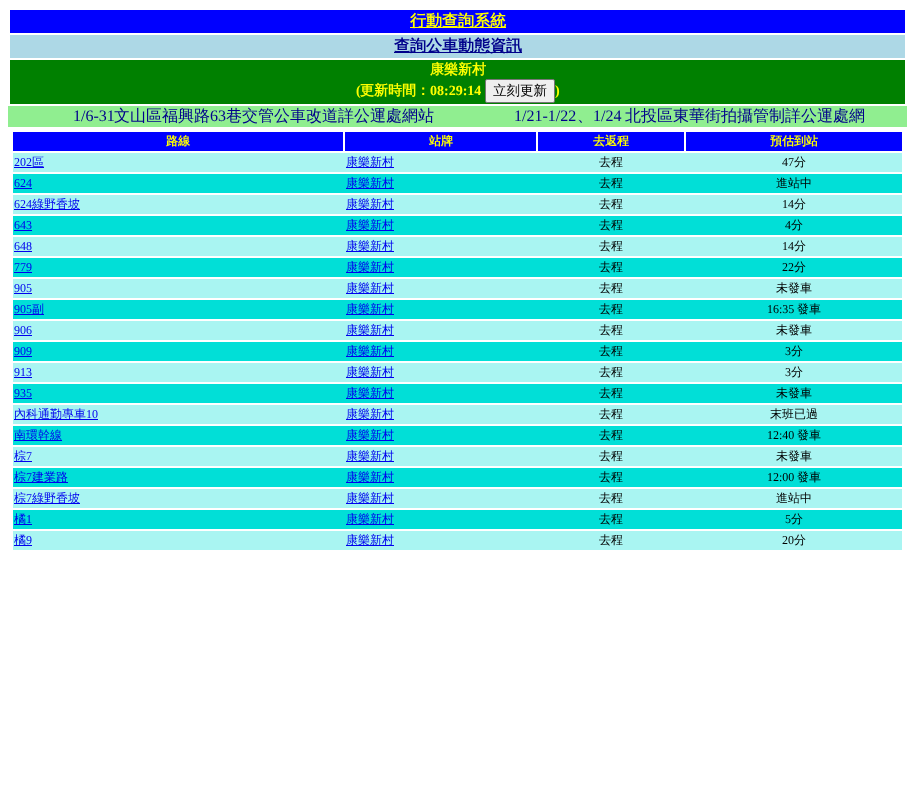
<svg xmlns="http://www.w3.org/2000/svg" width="915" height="793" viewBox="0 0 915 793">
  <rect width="100%" height="100%" fill="#fff"/>
  <path d="M10 10h895v23H10z" fill="#00f"/>
  <path d="M410 27h96v1H410z" fill="#ff0"/>
  <path d="M10 35h895v23H10z" fill="#add8e6"/>
  <path d="M394 52h128v1H394z" fill="#00008b"/>
  <path d="M10 60h895v44H10z" fill="#008000"/>
  <rect x="485.5" y="79.5" width="69" height="23" rx="1.5" fill="#efefef" stroke="#767676"/>
  <path d="M8 106h899v21H8z" fill="#90ee90"/>
  <path d="M13 132h330v19H13z" fill="#00f"/>
  <path d="M345 132h191v19H345z" fill="#00f"/>
  <path d="M538 132h146v19H538z" fill="#00f"/>
  <path d="M686 132h216v19H686z" fill="#00f"/>
  <path d="M13 153h889v19H13z" fill="#a9f5f2"/>
  <path d="M14 167h30v1H14z" fill="#00e"/>
  <path d="M346 167h48v1H346z" fill="#00e"/>
  <path d="M13 174h889v19H13z" fill="#01dfd7"/>
  <path d="M14 188h18v1H14z" fill="#00e"/>
  <path d="M346 188h48v1H346z" fill="#00e"/>
  <path d="M13 195h889v19H13z" fill="#a9f5f2"/>
  <path d="M14 209h66v1H14z" fill="#00e"/>
  <path d="M346 209h48v1H346z" fill="#00e"/>
  <path d="M13 216h889v19H13z" fill="#01dfd7"/>
  <path d="M14 230h18v1H14z" fill="#00e"/>
  <path d="M346 230h48v1H346z" fill="#00e"/>
  <path d="M13 237h889v19H13z" fill="#a9f5f2"/>
  <path d="M14 251h18v1H14z" fill="#00e"/>
  <path d="M346 251h48v1H346z" fill="#00e"/>
  <path d="M13 258h889v19H13z" fill="#01dfd7"/>
  <path d="M14 272h18v1H14z" fill="#00e"/>
  <path d="M346 272h48v1H346z" fill="#00e"/>
  <path d="M13 279h889v19H13z" fill="#a9f5f2"/>
  <path d="M14 293h18v1H14z" fill="#00e"/>
  <path d="M346 293h48v1H346z" fill="#00e"/>
  <path d="M13 300h889v19H13z" fill="#01dfd7"/>
  <path d="M14 314h30v1H14z" fill="#00e"/>
  <path d="M346 314h48v1H346z" fill="#00e"/>
  <path d="M13 321h889v19H13z" fill="#a9f5f2"/>
  <path d="M14 335h18v1H14z" fill="#00e"/>
  <path d="M346 335h48v1H346z" fill="#00e"/>
  <path d="M13 342h889v19H13z" fill="#01dfd7"/>
  <path d="M14 356h18v1H14z" fill="#00e"/>
  <path d="M346 356h48v1H346z" fill="#00e"/>
  <path d="M13 363h889v19H13z" fill="#a9f5f2"/>
  <path d="M14 377h18v1H14z" fill="#00e"/>
  <path d="M346 377h48v1H346z" fill="#00e"/>
  <path d="M13 384h889v19H13z" fill="#01dfd7"/>
  <path d="M14 398h18v1H14z" fill="#00e"/>
  <path d="M346 398h48v1H346z" fill="#00e"/>
  <path d="M13 405h889v19H13z" fill="#a9f5f2"/>
  <path d="M14 419h84v1H14z" fill="#00e"/>
  <path d="M346 419h48v1H346z" fill="#00e"/>
  <path d="M13 426h889v19H13z" fill="#01dfd7"/>
  <path d="M14 440h48v1H14z" fill="#00e"/>
  <path d="M346 440h48v1H346z" fill="#00e"/>
  <path d="M13 447h889v19H13z" fill="#a9f5f2"/>
  <path d="M14 461h18v1H14z" fill="#00e"/>
  <path d="M346 461h48v1H346z" fill="#00e"/>
  <path d="M13 468h889v19H13z" fill="#01dfd7"/>
  <path d="M14 482h54v1H14z" fill="#00e"/>
  <path d="M346 482h48v1H346z" fill="#00e"/>
  <path d="M13 489h889v19H13z" fill="#a9f5f2"/>
  <path d="M14 503h66v1H14z" fill="#00e"/>
  <path d="M346 503h48v1H346z" fill="#00e"/>
  <path d="M13 510h889v19H13z" fill="#01dfd7"/>
  <path d="M14 524h18v1H14z" fill="#00e"/>
  <path d="M346 524h48v1H346z" fill="#00e"/>
  <path d="M13 531h889v19H13z" fill="#a9f5f2"/>
  <path d="M14 545h18v1H14z" fill="#00e"/>
  <path d="M346 545h48v1H346z" fill="#00e"/>
  <text x="410" y="26" font-family="WenQuanYi Zen Hei" font-size="16" font-weight="bold" fill="#ff0">行動查詢系統</text>
  <text x="394" y="51" font-family="WenQuanYi Zen Hei" font-size="16" font-weight="bold" fill="#00008b">查詢公車動態資訊</text>
  <text x="430" y="74" font-family="WenQuanYi Zen Hei" font-size="14" font-weight="bold" fill="#ff0">康樂新村</text>
  <text x="356" y="95" font-family="Liberation Serif" font-size="14" font-weight="bold" fill="#ff0">(</text>
  <text x="360" y="95" font-family="WenQuanYi Zen Hei" font-size="14" font-weight="bold" fill="#ff0">更新時間：</text>
  <text x="430" y="95" font-family="Liberation Serif" font-size="14" font-weight="bold" fill="#ff0">08:29:14</text>
  <text x="493" y="95" font-family="WenQuanYi Zen Hei" font-size="13.5" font-weight="500" fill="#000">立刻更新</text>
  <text x="555" y="95" font-family="Liberation Serif" font-size="14" font-weight="bold" fill="#ff0">)</text>
  <text x="73" y="121" font-family="Liberation Serif" font-size="16" fill="#00008b">1/6-31</text>
  <text x="114" y="121" font-family="WenQuanYi Zen Hei" font-size="16" font-weight="500" fill="#00008b">文山區福興路</text>
  <text x="210" y="121" font-family="Liberation Serif" font-size="16" fill="#00008b">63</text>
  <text x="226" y="121" font-family="WenQuanYi Zen Hei" font-size="16" font-weight="500" fill="#00008b">巷交管公車改道詳公運處網站</text>
  <text x="514" y="121" font-family="Liberation Serif" font-size="16" fill="#00008b">1/21-1/22</text>
  <text x="577" y="121" font-family="WenQuanYi Zen Hei" font-size="16" font-weight="500" fill="#00008b">、</text>
  <text x="593" y="121" font-family="Liberation Serif" font-size="16" fill="#00008b">1/24</text>
  <text x="625" y="121" font-family="WenQuanYi Zen Hei" font-size="16" font-weight="500" fill="#00008b">北投區東華街拍攝管制詳公運處網</text>
  <g font-family="WenQuanYi Zen Hei" font-size="12" font-weight="bold" fill="#ff0">
    <text x="166" y="145">路線</text>
    <text x="429" y="145">站牌</text>
    <text x="593" y="145">去返程</text>
    <text x="770" y="145">預估到站</text>
  </g>
  <text x="14" y="166" font-family="Liberation Serif" font-size="12" fill="#00e">202</text>
  <g font-family="WenQuanYi Zen Hei" font-size="12" font-weight="500" fill="#00e">
    <text x="32" y="166">區</text>
    <text x="346" y="166">康樂新村</text>
  </g>
  <text x="599" y="166" font-family="WenQuanYi Zen Hei" font-size="12" font-weight="500" fill="#000">去程</text>
  <text x="782" y="166" font-family="Liberation Serif" font-size="12" fill="#000">47</text>
  <text x="794" y="166" font-family="WenQuanYi Zen Hei" font-size="12" font-weight="500" fill="#000">分</text>
  <text x="14" y="187" font-family="Liberation Serif" font-size="12" fill="#00e">624</text>
  <text x="346" y="187" font-family="WenQuanYi Zen Hei" font-size="12" font-weight="500" fill="#00e">康樂新村</text>
  <g font-family="WenQuanYi Zen Hei" font-size="12" font-weight="500" fill="#000">
    <text x="599" y="187">去程</text>
    <text x="776" y="187">進站中</text>
  </g>
  <text x="14" y="208" font-family="Liberation Serif" font-size="12" fill="#00e">624</text>
  <g font-family="WenQuanYi Zen Hei" font-size="12" font-weight="500" fill="#00e">
    <text x="32" y="208">綠野香坡</text>
    <text x="346" y="208">康樂新村</text>
  </g>
  <text x="599" y="208" font-family="WenQuanYi Zen Hei" font-size="12" font-weight="500" fill="#000">去程</text>
  <text x="782" y="208" font-family="Liberation Serif" font-size="12" fill="#000">14</text>
  <text x="794" y="208" font-family="WenQuanYi Zen Hei" font-size="12" font-weight="500" fill="#000">分</text>
  <text x="14" y="229" font-family="Liberation Serif" font-size="12" fill="#00e">643</text>
  <text x="346" y="229" font-family="WenQuanYi Zen Hei" font-size="12" font-weight="500" fill="#00e">康樂新村</text>
  <text x="599" y="229" font-family="WenQuanYi Zen Hei" font-size="12" font-weight="500" fill="#000">去程</text>
  <text x="785" y="229" font-family="Liberation Serif" font-size="12" fill="#000">4</text>
  <text x="791" y="229" font-family="WenQuanYi Zen Hei" font-size="12" font-weight="500" fill="#000">分</text>
  <text x="14" y="250" font-family="Liberation Serif" font-size="12" fill="#00e">648</text>
  <text x="346" y="250" font-family="WenQuanYi Zen Hei" font-size="12" font-weight="500" fill="#00e">康樂新村</text>
  <text x="599" y="250" font-family="WenQuanYi Zen Hei" font-size="12" font-weight="500" fill="#000">去程</text>
  <text x="782" y="250" font-family="Liberation Serif" font-size="12" fill="#000">14</text>
  <text x="794" y="250" font-family="WenQuanYi Zen Hei" font-size="12" font-weight="500" fill="#000">分</text>
  <text x="14" y="271" font-family="Liberation Serif" font-size="12" fill="#00e">779</text>
  <text x="346" y="271" font-family="WenQuanYi Zen Hei" font-size="12" font-weight="500" fill="#00e">康樂新村</text>
  <text x="599" y="271" font-family="WenQuanYi Zen Hei" font-size="12" font-weight="500" fill="#000">去程</text>
  <text x="782" y="271" font-family="Liberation Serif" font-size="12" fill="#000">22</text>
  <text x="794" y="271" font-family="WenQuanYi Zen Hei" font-size="12" font-weight="500" fill="#000">分</text>
  <text x="14" y="292" font-family="Liberation Serif" font-size="12" fill="#00e">905</text>
  <text x="346" y="292" font-family="WenQuanYi Zen Hei" font-size="12" font-weight="500" fill="#00e">康樂新村</text>
  <g font-family="WenQuanYi Zen Hei" font-size="12" font-weight="500" fill="#000">
    <text x="599" y="292">去程</text>
    <text x="776" y="292">未發車</text>
  </g>
  <text x="14" y="313" font-family="Liberation Serif" font-size="12" fill="#00e">905</text>
  <g font-family="WenQuanYi Zen Hei" font-size="12" font-weight="500" fill="#00e">
    <text x="32" y="313">副</text>
    <text x="346" y="313">康樂新村</text>
  </g>
  <text x="599" y="313" font-family="WenQuanYi Zen Hei" font-size="12" font-weight="500" fill="#000">去程</text>
  <text x="767" y="313" font-family="Liberation Serif" font-size="12" fill="#000">16:35</text>
  <text x="797" y="313" font-family="WenQuanYi Zen Hei" font-size="12" font-weight="500" fill="#000">發車</text>
  <text x="14" y="334" font-family="Liberation Serif" font-size="12" fill="#00e">906</text>
  <text x="346" y="334" font-family="WenQuanYi Zen Hei" font-size="12" font-weight="500" fill="#00e">康樂新村</text>
  <g font-family="WenQuanYi Zen Hei" font-size="12" font-weight="500" fill="#000">
    <text x="599" y="334">去程</text>
    <text x="776" y="334">未發車</text>
  </g>
  <text x="14" y="355" font-family="Liberation Serif" font-size="12" fill="#00e">909</text>
  <text x="346" y="355" font-family="WenQuanYi Zen Hei" font-size="12" font-weight="500" fill="#00e">康樂新村</text>
  <text x="599" y="355" font-family="WenQuanYi Zen Hei" font-size="12" font-weight="500" fill="#000">去程</text>
  <text x="785" y="355" font-family="Liberation Serif" font-size="12" fill="#000">3</text>
  <text x="791" y="355" font-family="WenQuanYi Zen Hei" font-size="12" font-weight="500" fill="#000">分</text>
  <text x="14" y="376" font-family="Liberation Serif" font-size="12" fill="#00e">913</text>
  <text x="346" y="376" font-family="WenQuanYi Zen Hei" font-size="12" font-weight="500" fill="#00e">康樂新村</text>
  <text x="599" y="376" font-family="WenQuanYi Zen Hei" font-size="12" font-weight="500" fill="#000">去程</text>
  <text x="785" y="376" font-family="Liberation Serif" font-size="12" fill="#000">3</text>
  <text x="791" y="376" font-family="WenQuanYi Zen Hei" font-size="12" font-weight="500" fill="#000">分</text>
  <text x="14" y="397" font-family="Liberation Serif" font-size="12" fill="#00e">935</text>
  <text x="346" y="397" font-family="WenQuanYi Zen Hei" font-size="12" font-weight="500" fill="#00e">康樂新村</text>
  <g font-family="WenQuanYi Zen Hei" font-size="12" font-weight="500" fill="#000">
    <text x="599" y="397">去程</text>
    <text x="776" y="397">未發車</text>
  </g>
  <text x="14" y="418" font-family="WenQuanYi Zen Hei" font-size="12" font-weight="500" fill="#00e">內科通勤專車</text>
  <text x="86" y="418" font-family="Liberation Serif" font-size="12" fill="#00e">10</text>
  <text x="346" y="418" font-family="WenQuanYi Zen Hei" font-size="12" font-weight="500" fill="#00e">康樂新村</text>
  <g font-family="WenQuanYi Zen Hei" font-size="12" font-weight="500" fill="#000">
    <text x="599" y="418">去程</text>
    <text x="770" y="418">末班已過</text>
  </g>
  <g font-family="WenQuanYi Zen Hei" font-size="12" font-weight="500" fill="#00e">
    <text x="14" y="439">南環幹線</text>
    <text x="346" y="439">康樂新村</text>
  </g>
  <text x="599" y="439" font-family="WenQuanYi Zen Hei" font-size="12" font-weight="500" fill="#000">去程</text>
  <text x="767" y="439" font-family="Liberation Serif" font-size="12" fill="#000">12:40</text>
  <text x="797" y="439" font-family="WenQuanYi Zen Hei" font-size="12" font-weight="500" fill="#000">發車</text>
  <text x="14" y="460" font-family="WenQuanYi Zen Hei" font-size="12" font-weight="500" fill="#00e">棕</text>
  <text x="26" y="460" font-family="Liberation Serif" font-size="12" fill="#00e">7</text>
  <text x="346" y="460" font-family="WenQuanYi Zen Hei" font-size="12" font-weight="500" fill="#00e">康樂新村</text>
  <g font-family="WenQuanYi Zen Hei" font-size="12" font-weight="500" fill="#000">
    <text x="599" y="460">去程</text>
    <text x="776" y="460">未發車</text>
  </g>
  <text x="14" y="481" font-family="WenQuanYi Zen Hei" font-size="12" font-weight="500" fill="#00e">棕</text>
  <text x="26" y="481" font-family="Liberation Serif" font-size="12" fill="#00e">7</text>
  <g font-family="WenQuanYi Zen Hei" font-size="12" font-weight="500" fill="#00e">
    <text x="32" y="481">建業路</text>
    <text x="346" y="481">康樂新村</text>
  </g>
  <text x="599" y="481" font-family="WenQuanYi Zen Hei" font-size="12" font-weight="500" fill="#000">去程</text>
  <text x="767" y="481" font-family="Liberation Serif" font-size="12" fill="#000">12:00</text>
  <text x="797" y="481" font-family="WenQuanYi Zen Hei" font-size="12" font-weight="500" fill="#000">發車</text>
  <text x="14" y="502" font-family="WenQuanYi Zen Hei" font-size="12" font-weight="500" fill="#00e">棕</text>
  <text x="26" y="502" font-family="Liberation Serif" font-size="12" fill="#00e">7</text>
  <g font-family="WenQuanYi Zen Hei" font-size="12" font-weight="500" fill="#00e">
    <text x="32" y="502">綠野香坡</text>
    <text x="346" y="502">康樂新村</text>
  </g>
  <g font-family="WenQuanYi Zen Hei" font-size="12" font-weight="500" fill="#000">
    <text x="599" y="502">去程</text>
    <text x="776" y="502">進站中</text>
  </g>
  <text x="14" y="523" font-family="WenQuanYi Zen Hei" font-size="12" font-weight="500" fill="#00e">橘</text>
  <text x="26" y="523" font-family="Liberation Serif" font-size="12" fill="#00e">1</text>
  <text x="346" y="523" font-family="WenQuanYi Zen Hei" font-size="12" font-weight="500" fill="#00e">康樂新村</text>
  <text x="599" y="523" font-family="WenQuanYi Zen Hei" font-size="12" font-weight="500" fill="#000">去程</text>
  <text x="785" y="523" font-family="Liberation Serif" font-size="12" fill="#000">5</text>
  <text x="791" y="523" font-family="WenQuanYi Zen Hei" font-size="12" font-weight="500" fill="#000">分</text>
  <text x="14" y="544" font-family="WenQuanYi Zen Hei" font-size="12" font-weight="500" fill="#00e">橘</text>
  <text x="26" y="544" font-family="Liberation Serif" font-size="12" fill="#00e">9</text>
  <text x="346" y="544" font-family="WenQuanYi Zen Hei" font-size="12" font-weight="500" fill="#00e">康樂新村</text>
  <text x="599" y="544" font-family="WenQuanYi Zen Hei" font-size="12" font-weight="500" fill="#000">去程</text>
  <text x="782" y="544" font-family="Liberation Serif" font-size="12" fill="#000">20</text>
  <text x="794" y="544" font-family="WenQuanYi Zen Hei" font-size="12" font-weight="500" fill="#000">分</text>
</svg>
